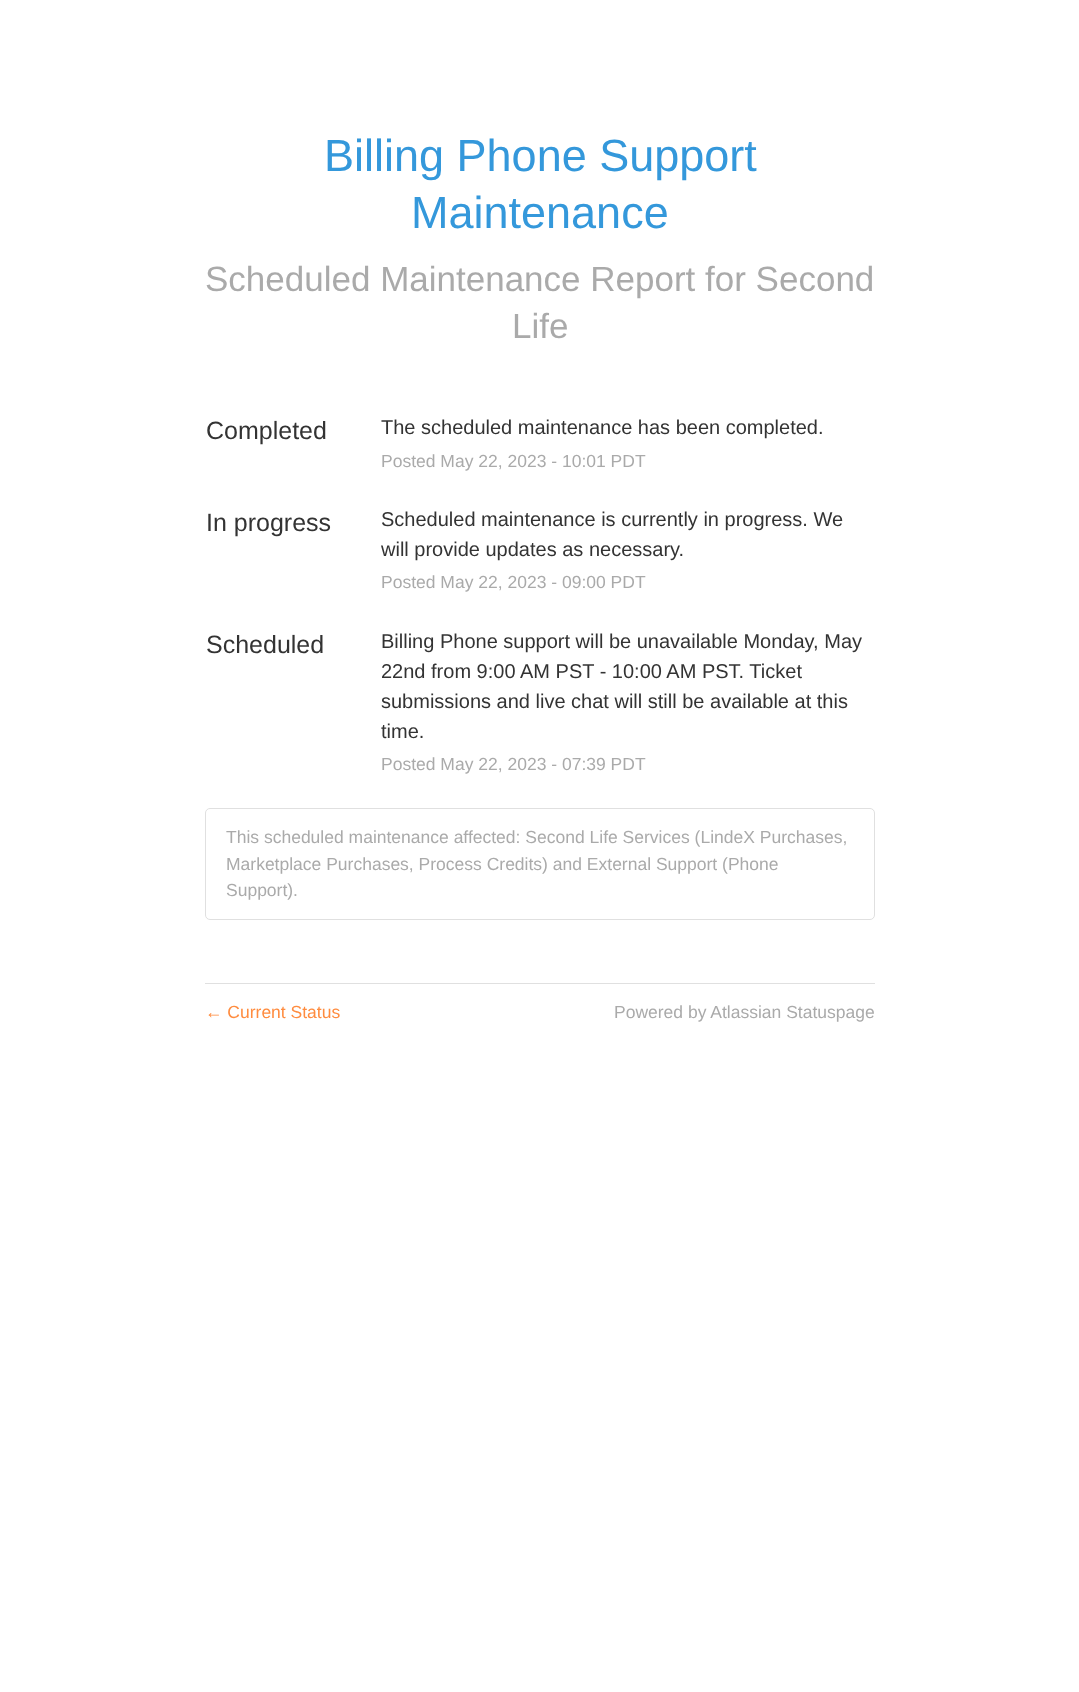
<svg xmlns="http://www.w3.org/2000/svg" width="1079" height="1692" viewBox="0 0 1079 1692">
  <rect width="100%" height="100%" fill="#fff"/>
  <rect x="205.5" y="808.5" width="669" height="111" rx="4.5" fill="none" stroke="#e0e0e0"/>
  <path d="M205 983h670v1H205z" fill="#e0e0e0"/>
  <g font-family="Liberation Sans" font-size="45" fill="#3498db">
    <text x="324" y="171">Billing Phone Support</text>
    <text x="411" y="228">Maintenance</text>
  </g>
  <g font-family="Liberation Sans" font-size="35" fill="#aaa">
    <text x="205" y="291">Scheduled Maintenance Report for Second</text>
    <text x="512" y="338">Life</text>
  </g>
  <text x="206" y="439" font-family="Liberation Sans" font-size="25" fill="#333">Completed</text>
  <text x="381" y="434" font-family="Liberation Sans" font-size="20" fill="#333">The scheduled maintenance has been completed.</text>
  <text x="381" y="467" font-family="Liberation Sans" font-size="17.5" fill="#aaa">Posted May 22, 2023 - 10:01 PDT</text>
  <text x="206" y="531" font-family="Liberation Sans" font-size="25" fill="#333">In progress</text>
  <g font-family="Liberation Sans" font-size="20" fill="#333">
    <text x="381" y="526">Scheduled maintenance is currently in progress. We</text>
    <text x="381" y="556">will provide updates as necessary.</text>
  </g>
  <text x="381" y="588" font-family="Liberation Sans" font-size="17.5" fill="#aaa">Posted May 22, 2023 - 09:00 PDT</text>
  <text x="206" y="653" font-family="Liberation Sans" font-size="25" fill="#333">Scheduled</text>
  <g font-family="Liberation Sans" font-size="20" fill="#333">
    <text x="381" y="648">Billing Phone support will be unavailable Monday, May</text>
    <text x="381" y="678">22nd from 9:00 AM PST - 10:00 AM PST. Ticket</text>
    <text x="381" y="708">submissions and live chat will still be available at this</text>
    <text x="381" y="738">time.</text>
  </g>
  <g font-family="Liberation Sans" font-size="17.5" fill="#aaa">
    <text x="381" y="770">Posted May 22, 2023 - 07:39 PDT</text>
    <text x="226" y="843">This scheduled maintenance affected: Second Life Services (LindeX Purchases,</text>
    <text x="226" y="870">Marketplace Purchases, Process Credits) and External Support (Phone</text>
    <text x="226" y="896">Support).</text>
  </g>
  <text x="205" y="1018" font-family="Liberation Sans" font-size="17.5" fill="#ff8c3f">← Current Status</text>
  <text x="614" y="1018" font-family="Liberation Sans" font-size="17.5" fill="#aaa">Powered by Atlassian Statuspage</text>
</svg>
